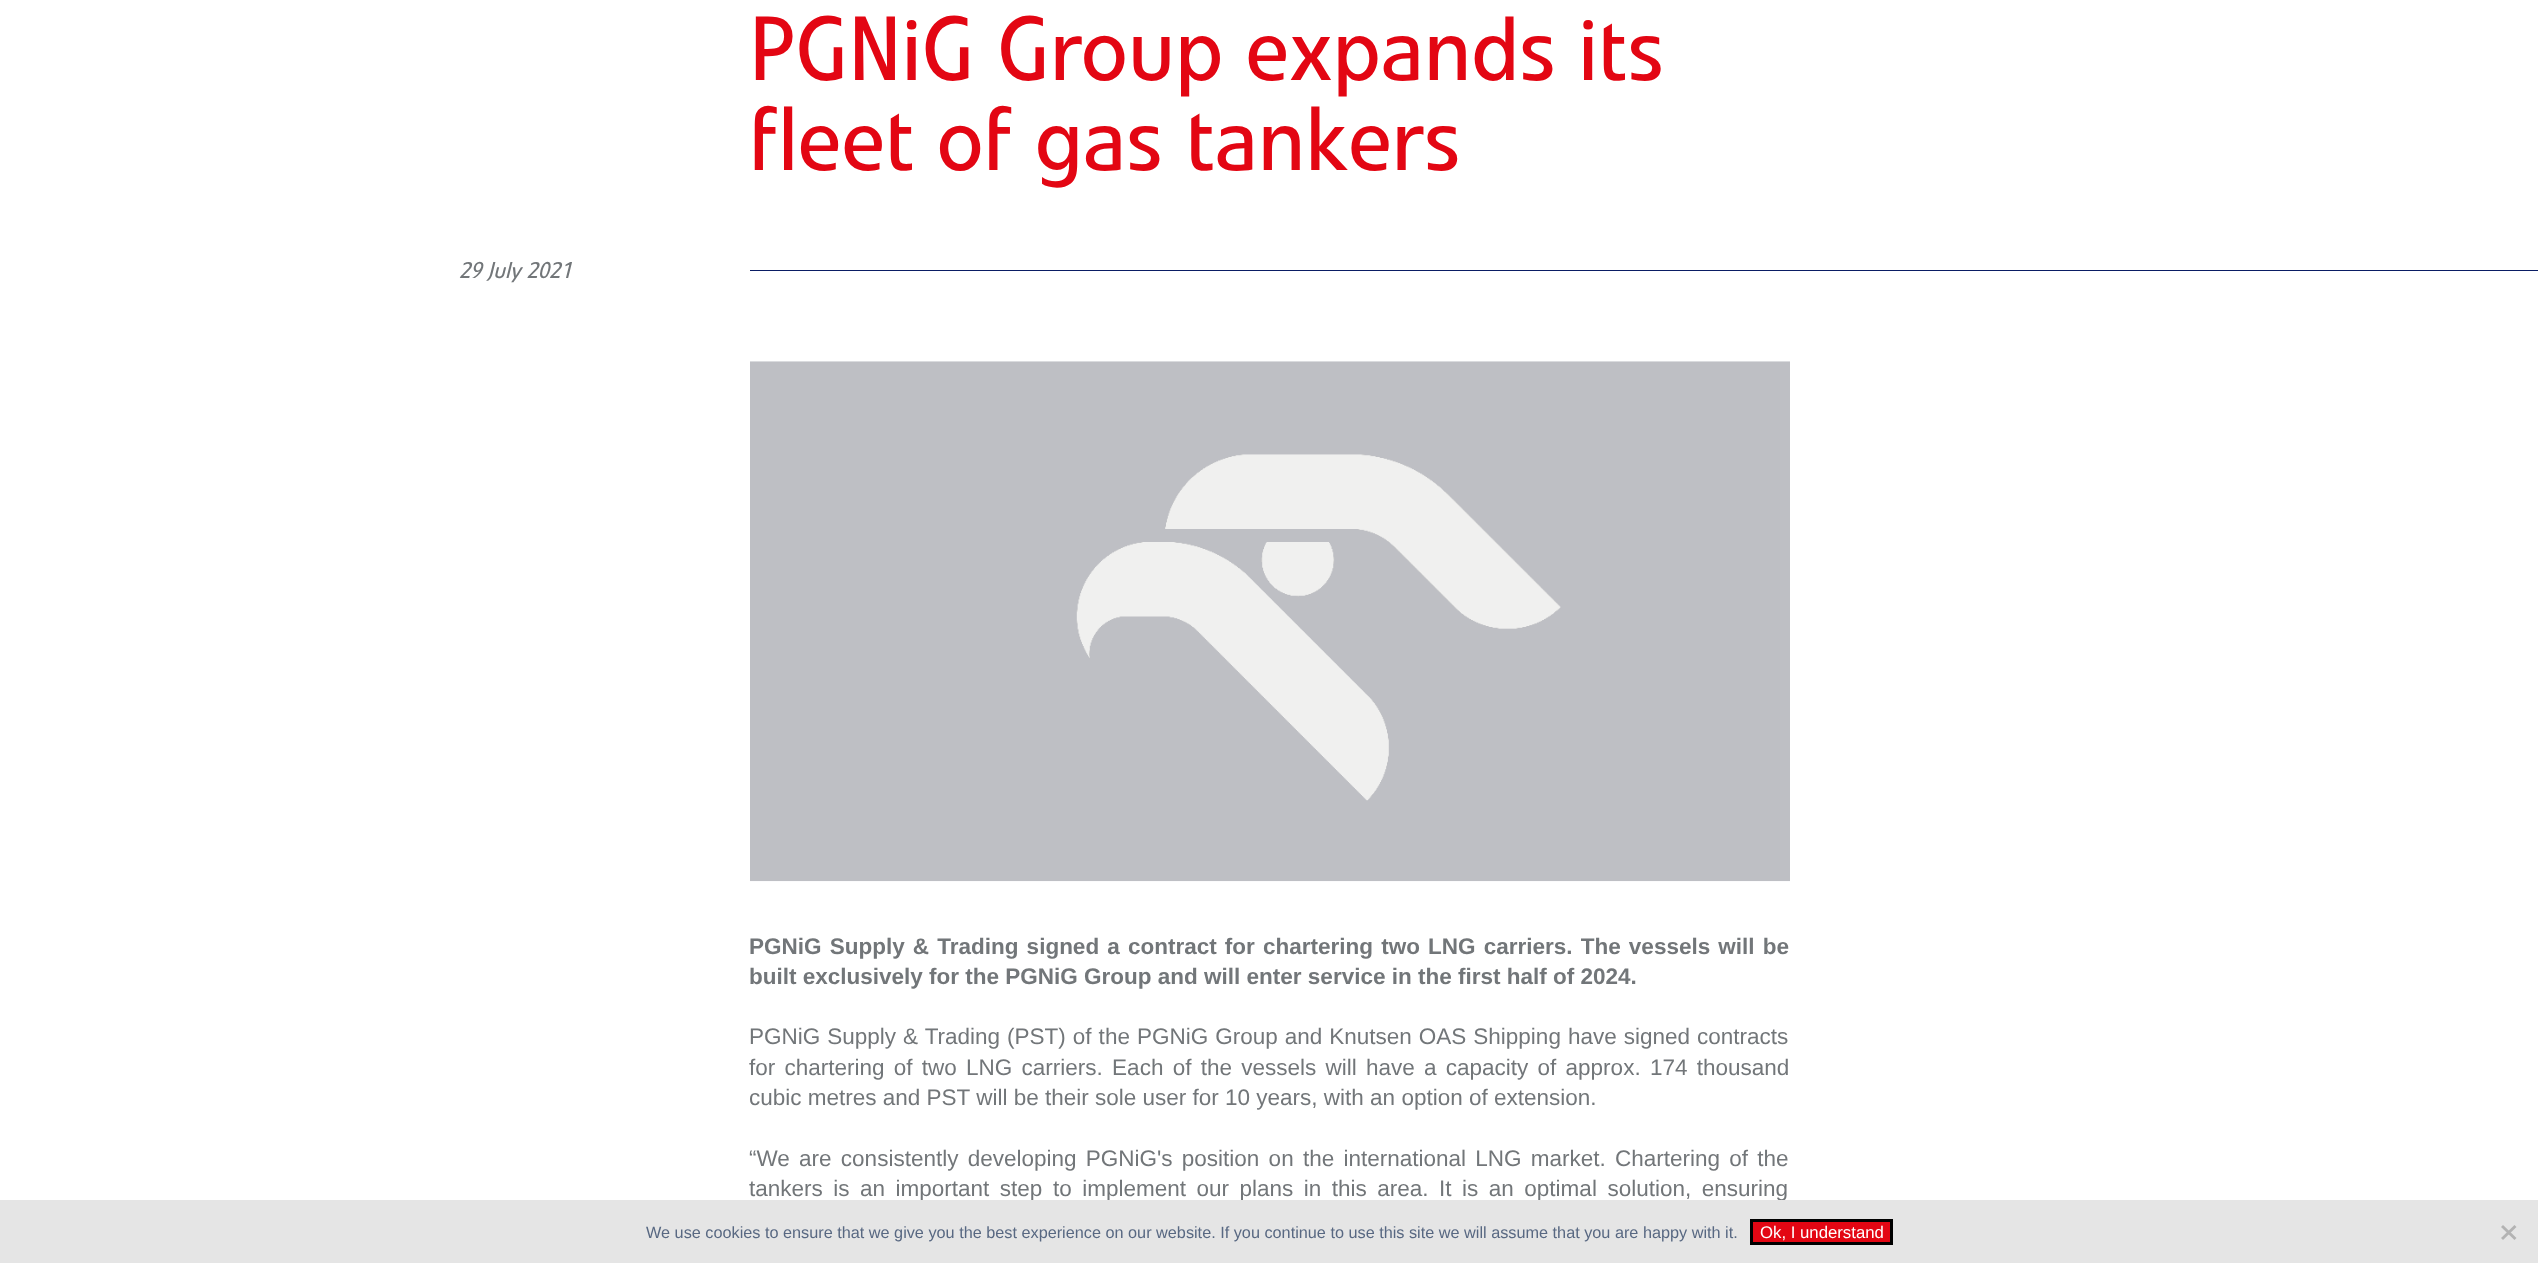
<svg xmlns="http://www.w3.org/2000/svg" width="2538" height="1263" viewBox="0 0 2538 1263">
  <rect width="100%" height="100%" fill="#fff"/>
  <path d="M750 270h1788v1H750z" fill="#0a1d64"/>
  <image x="750" y="361" width="1040" height="521" href="img/1.png"/>
  <text x="459" y="278" font-family="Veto" font-size="22.5" font-style="italic" fill="#727679">29 July 2021</text>
  <g font-family="Veto" font-size="90" fill="#e30613">
    <text x="749" y="80">PGNiG Group expands its</text>
    <text x="749" y="170">fleet of gas tankers</text>
  </g>
  <g font-family="Liberation Sans" font-size="22.5" font-weight="bold" fill="#727679">
    <text x="749" y="954" word-spacing="1.9">PGNiG Supply &amp; Trading signed a contract for chartering two LNG carriers. The vessels will be</text>
    <text x="749" y="984">built exclusively for the PGNiG Group and will enter service in the first half of 2024.</text>
  </g>
  <g font-family="Liberation Sans" font-size="22.5" fill="#727679">
    <text x="749" y="1044" word-spacing="0.75">PGNiG Supply &amp; Trading (PST) of the PGNiG Group and Knutsen OAS Shipping have signed contracts</text>
    <text x="749" y="1075" word-spacing="3">for chartering of two LNG carriers. Each of the vessels will have a capacity of approx. 174 thousand</text>
    <text x="749" y="1105">cubic metres and PST will be their sole user for 10 years, with an option of extension.</text>
    <text x="749" y="1166" word-spacing="3">“We are consistently developing PGNiG's position on the international LNG market. Chartering of the</text>
    <text x="749" y="1196" word-spacing="4.25">tankers is an important step to implement our plans in this area. It is an optimal solution, ensuring</text>
  </g>
  <path d="M0 1200h2538v63H0z" fill="#e5e5e5"/>
  <text x="646" y="1238" font-family="Liberation Sans" font-size="16.25" fill="#586882">We use cookies to ensure that we give you the best experience on our website. If you continue to use this site we will assume that you are happy with it.</text>
  <path d="M1751.5 1220.5h140v23H1751.5z" fill="#e30613" stroke="#000" stroke-width="3"/>
  <text x="1760" y="1238" font-family="Liberation Sans" font-size="16.75" fill="#fff">Ok, I understand</text>
  <path d="M2514.5 1225L2516.5 1227L2503 1240L2501 1238Z" fill="#b3b3b3"/>
  <path d="M2501 1227L2503 1225L2516.5 1238L2514.5 1240Z" fill="#b3b3b3"/>
</svg>
